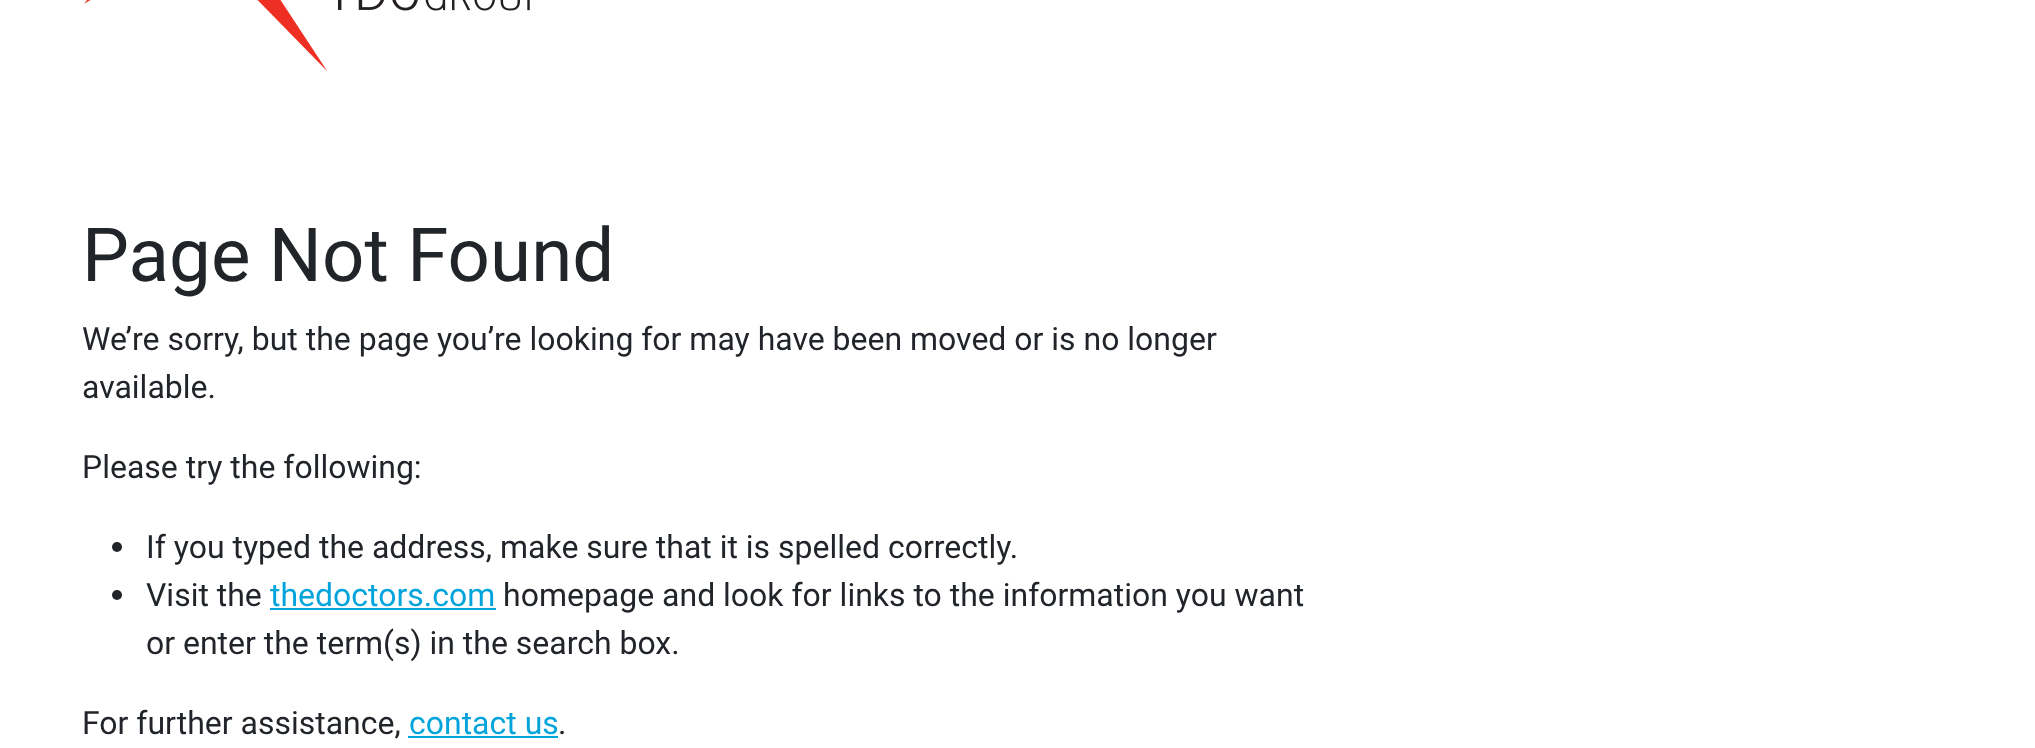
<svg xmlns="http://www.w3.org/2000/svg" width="2035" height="748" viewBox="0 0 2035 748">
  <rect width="100%" height="100%" fill="#fff"/>
  <image x="84" y="0" width="446" height="72" href="img/1.png"/>
  <circle cx="117" cy="547" r="5" fill="#212529"/>
  <circle cx="117" cy="595" r="5" fill="#212529"/>
  <path d="M270 608h226v2H270z" fill="#03a4dc"/>
  <path d="M408 736h150v2H408z" fill="#03a4dc"/>
  <text x="82" y="281" font-family="Roboto" font-size="74.5" fill="#212529">Page Not Found</text>
  <g font-family="Roboto" font-size="32" fill="#212529">
    <text x="82" y="350">We’re sorry, but the page you’re looking for may have been moved or is no longer</text>
    <text x="82" y="398">available.</text>
    <text x="82" y="478">Please try the following:</text>
    <text x="146" y="558">If you typed the address, make sure that it is spelled correctly.</text>
    <text x="146" y="606">Visit the</text>
  </g>
  <text x="270" y="606" font-family="Roboto" font-size="32" fill="#03a4dc">thedoctors.com</text>
  <g font-family="Roboto" font-size="32" fill="#212529">
    <text x="503" y="606">homepage and look for links to the information you want</text>
    <text x="146" y="654">or enter the term(s) in the search box.</text>
    <text x="82" y="734">For further assistance,</text>
  </g>
  <text x="409" y="734" font-family="Roboto" font-size="32" fill="#03a4dc">contact us</text>
  <text x="558" y="734" font-family="Roboto" font-size="32" fill="#212529">.</text>
</svg>
